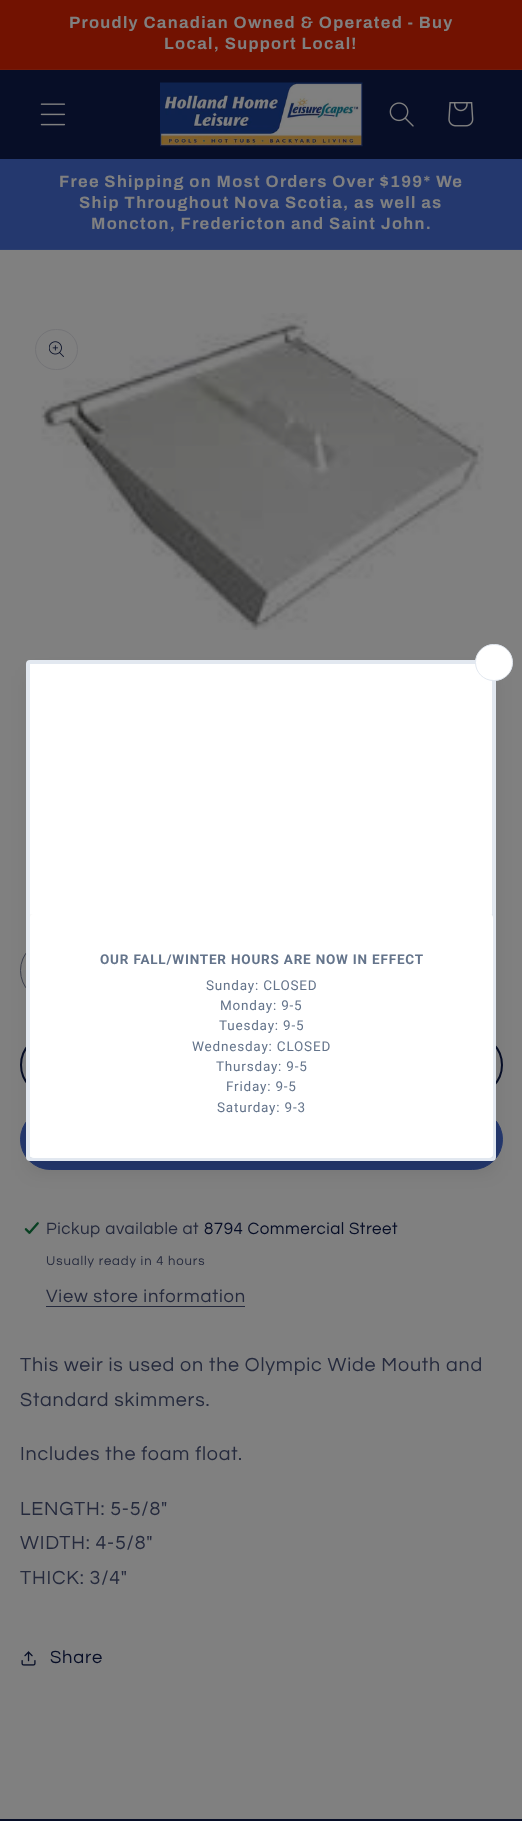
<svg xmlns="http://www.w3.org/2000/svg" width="522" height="1821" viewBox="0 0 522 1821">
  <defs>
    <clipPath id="clip1"><path d="M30 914h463v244H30z"/></clipPath>
  </defs>
  <rect width="100%" height="100%" fill="#808080"/>
  <path d="M0 0h522v69H0z" fill="#721201"/>
  <path d="M0 69h522v1H0z" fill="#731b0b"/>
  <path d="M0 70h522v89H0z" fill="#070e27"/>
  <image x="40" y="103" width="26" height="23" href="img/1.png"/>
  <image x="160" y="82" width="203" height="65" href="img/2.png"/>
  <image x="389" y="102" width="25" height="25" href="img/3.png"/>
  <image x="448" y="102" width="26" height="25" href="img/4.png"/>
  <path d="M0 159h522v90H0z" fill="#24386e"/>
  <path d="M0 249h522v1H0z" fill="#2b3e6f"/>
  <rect x="20.5" y="940.5" width="177" height="60" rx="30" fill="none" stroke="#3d414f"/>
  <rect x="21" y="1035" width="481" height="60" rx="30" fill="none" stroke="#070e27" stroke-width="2"/>
  <rect x="20.5" y="1109.5" width="482" height="60" rx="30" fill="#24386e" stroke="#24386e"/>
  <path d="M30 676h463v494H30z" fill="#0000001a" filter="blur(9.5px)"/>
  <rect x="28" y="662" width="466" height="497" rx="2" fill="#fff" stroke="#e2e8f0" stroke-width="4"/>
  <rect x="475.5" y="644.5" width="37" height="36" rx="18" fill="#fff" stroke="#e2e8f0"/>
  <g clip-path="url(#clip1)">
    <path d="M34 918h455v236H34z" fill="#0000001f" filter="blur(12.5px)"/>
  </g>
  <rect x="30" y="914" width="463" height="244" rx="4" fill="#fff"/>
  <image x="41" y="313" width="443" height="317" href="img/5.png"/>
  <rect x="35.5" y="329.5" width="42" height="40" rx="20" fill="none" stroke="#747477"/>
  <image x="49" y="341" width="15" height="16" href="img/6.png"/>
  <image x="24" y="1221" width="16" height="14" href="img/7.png"/>
  <path d="M46 1306h199v1H46z" fill="#252a3d"/>
  <image x="21" y="1651" width="15" height="15" href="img/8.png"/>
  <path d="M0 1819h522v2H0z" fill="#070e27"/>
  <g font-family="Archivo" font-size="16.5" font-weight="bold" letter-spacing="1.3" fill="#808080">
    <text x="69" y="28">Proudly Canadian Owned &amp; Operated - Buy</text>
    <text x="164" y="49">Local, Support Local!</text>
    <text x="59" y="187">Free Shipping on Most Orders Over $199* We</text>
    <text x="79" y="208">Ship Throughout Nova Scotia, as well as</text>
    <text x="91" y="229">Moncton, Fredericton and Saint John.</text>
  </g>
  <text x="100" y="964" font-family="Roboto" font-size="13.5" font-weight="bold" letter-spacing="0.8" fill="#64748b">OUR FALL/WINTER HOURS ARE NOW IN EFFECT</text>
  <g font-family="Roboto" font-size="13.5" letter-spacing="0.8" fill="#64748b">
    <text x="206" y="990">Sunday: CLOSED</text>
    <text x="220" y="1010">Monday: 9-5</text>
    <text x="219" y="1030">Tuesday: 9-5</text>
    <text x="192" y="1051">Wednesday: CLOSED</text>
    <text x="216" y="1071">Thursday: 9-5</text>
    <text x="226" y="1091">Friday: 9-5</text>
    <text x="217" y="1112">Saturday: 9-3</text>
  </g>
  <text x="46" y="1234" font-family="Questrial" font-size="17" letter-spacing="0.5" fill="#252a3d">Pickup available at</text>
  <text x="204" y="1234" font-family="Questrial" font-size="17" letter-spacing="0.5" fill="#070e27">8794 Commercial Street</text>
  <text x="46" y="1265" font-family="Questrial" font-size="13.1" letter-spacing="0.9" fill="#252a3d">Usually ready in 4 hours</text>
  <text x="46" y="1302" font-family="Questrial" font-size="18.4" letter-spacing="0.8" fill="#252a3d">View store information</text>
  <g font-family="Questrial" font-size="19.7" letter-spacing="0.8" fill="#252a3d">
    <text x="20" y="1371">This weir is used on the Olympic Wide Mouth and</text>
    <text x="20" y="1406">Standard skimmers.</text>
    <text x="20" y="1460">Includes the foam float.</text>
    <text x="20" y="1515">LENGTH: 5-5/8"</text>
    <text x="20" y="1549">WIDTH: 4-5/8"</text>
    <text x="20" y="1584">THICK: 3/4"</text>
  </g>
  <text x="50" y="1663" font-family="Questrial" font-size="18.4" letter-spacing="0.8" fill="#070e27">Share</text>
</svg>
